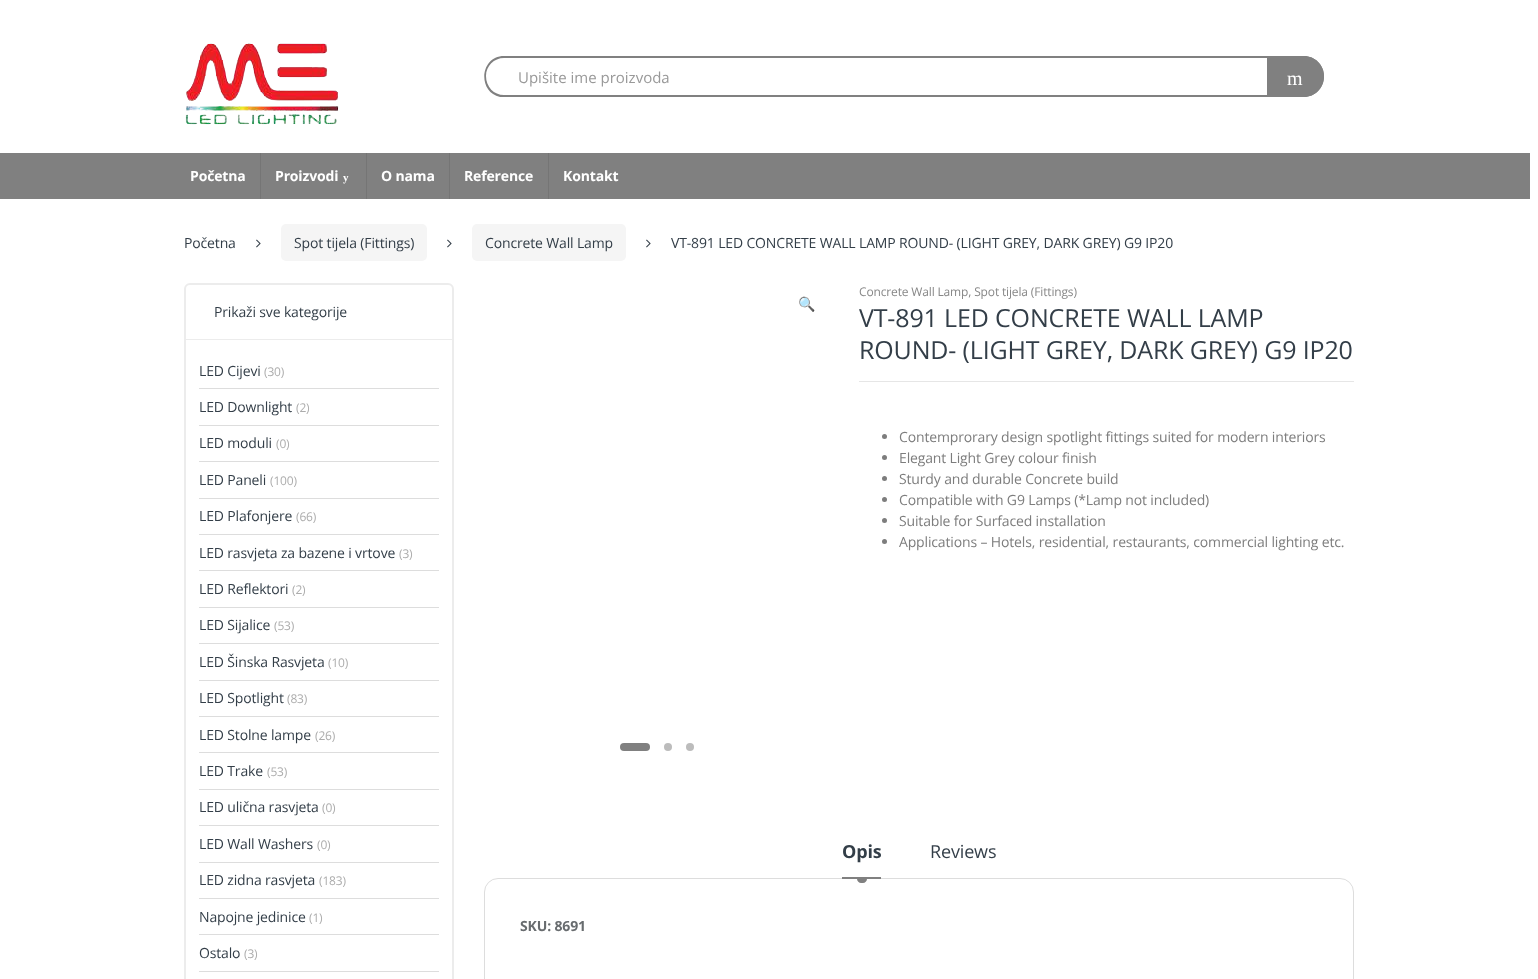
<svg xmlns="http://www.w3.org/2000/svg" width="1538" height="979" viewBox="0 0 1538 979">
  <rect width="100%" height="100%" fill="#fff"/>
  <image x="185" y="43" width="154" height="82" href="img/1.png"/>
  <path d="M504 56H1269V97H504H500C477 92 480 56 504 56ZM504 58H1269V95H504C494 95 486 87 486 76C486 66 494 58 504 58Z" fill="#808080" fill-rule="evenodd"/>
  <path d="M1267 56H1303.5C1315 56 1324 65 1324 76.5C1324 88 1315 97 1303.5 97H1267Z" fill="#808080"/>
  <path d="M1267 56H1304C1315 56 1324 65 1324 76C1324 88 1315 97 1304 97H1267ZM1267 58H1304C1314 58 1322 66 1322 76C1322 87 1314 95 1304 95H1267Z" fill="#808080" fill-rule="evenodd"/>
  <path d="M0 153h1530v46H0z" fill="#808080"/>
  <path d="M260 153h1v46H260z" fill="#757575"/>
  <path d="M366 153h1v46H366z" fill="#757575"/>
  <path d="M449 153h1v46H449z" fill="#757575"/>
  <path d="M548 153h1v46H548z" fill="#757575"/>
  <image x="256" y="239" width="5" height="9" href="img/2.png"/>
  <rect x="281" y="224" width="146" height="37" rx="5" fill="#f5f5f5"/>
  <image x="447" y="239" width="5" height="9" href="img/2.png"/>
  <rect x="472" y="224" width="154" height="37" rx="5" fill="#f5f5f5"/>
  <image x="646" y="239" width="5" height="9" href="img/2.png"/>
  <rect x="185" y="284" width="268" height="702" rx="5" fill="none" stroke="#ececec" stroke-width="2"/>
  <path d="M186 339h266v1H186z" fill="#ececec"/>
  <path d="M199 388h240v1H199z" fill="#ddd"/>
  <path d="M199 425h240v1H199z" fill="#ddd"/>
  <path d="M199 461h240v1H199z" fill="#ddd"/>
  <path d="M199 498h240v1H199z" fill="#ddd"/>
  <path d="M199 534h240v1H199z" fill="#ddd"/>
  <path d="M199 570h240v1H199z" fill="#ddd"/>
  <path d="M199 607h240v1H199z" fill="#ddd"/>
  <path d="M199 643h240v1H199z" fill="#ddd"/>
  <path d="M199 680h240v1H199z" fill="#ddd"/>
  <path d="M199 716h240v1H199z" fill="#ddd"/>
  <path d="M199 752h240v1H199z" fill="#ddd"/>
  <path d="M199 789h240v1H199z" fill="#ddd"/>
  <path d="M199 825h240v1H199z" fill="#ddd"/>
  <path d="M199 862h240v1H199z" fill="#ddd"/>
  <path d="M199 898h240v1H199z" fill="#ddd"/>
  <path d="M199 934h240v1H199z" fill="#ddd"/>
  <path d="M199 971h240v1H199z" fill="#ddd"/>
  <rect x="620" y="743" width="30" height="8" rx="4" fill="#808080"/>
  <circle cx="668" cy="747" r="4" fill="#bcbcbc"/>
  <circle cx="690" cy="747" r="4" fill="#bcbcbc"/>
  <path d="M859 381h495v1H859z" fill="#e6e6e6"/>
  <circle cx="884.5" cy="436.5" r="2.5" fill="#7d7d7d"/>
  <circle cx="884.5" cy="457.5" r="2.5" fill="#7d7d7d"/>
  <circle cx="884.5" cy="478.5" r="2.5" fill="#7d7d7d"/>
  <circle cx="884.5" cy="499.5" r="2.5" fill="#7d7d7d"/>
  <circle cx="884.5" cy="520.5" r="2.5" fill="#7d7d7d"/>
  <circle cx="884.5" cy="541.5" r="2.5" fill="#7d7d7d"/>
  <rect x="484.5" y="878.5" width="869" height="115" rx="13.5" fill="none" stroke="#ddd"/>
  <path d="M842 877h39v2H842z" fill="#808080"/>
  <path d="M857 879H867C867 881 865 883 863 883H861C859 883 857 881 857 879Z" fill="#808080"/>
  <text x="518" y="83" font-family="Open Sans" font-size="15" fill="#999">Upišite ime proizvoda</text>
  <text x="1287" y="85" font-family="Liberation Serif" font-size="20" fill="#fff">m</text>
  <g font-family="Open Sans" font-size="14" font-weight="bold" letter-spacing="-0.15" fill="#fff">
    <text x="190" y="181">Početna</text>
    <text x="275" y="181">Proizvodi</text>
  </g>
  <text x="343" y="181" font-family="Liberation Serif" font-size="11" font-weight="bold" letter-spacing="-0.15" fill="#fff">y</text>
  <g font-family="Open Sans" font-size="14" font-weight="bold" letter-spacing="-0.15" fill="#fff">
    <text x="381" y="181">O nama</text>
    <text x="464" y="181">Reference</text>
    <text x="563" y="181">Kontakt</text>
  </g>
  <g font-family="Open Sans" font-size="14" letter-spacing="-0.15" fill="#333e48">
    <text x="184" y="248">Početna</text>
    <text x="294" y="248">Spot tijela (Fittings)</text>
    <text x="485" y="248">Concrete Wall Lamp</text>
    <text x="671" y="248">VT-891 LED CONCRETE WALL LAMP ROUND- (LIGHT GREY, DARK GREY) G9 IP20</text>
    <text x="214" y="317">Prikaži sve kategorije</text>
    <text x="199" y="376">LED Cijevi</text>
  </g>
  <text x="264" y="376" font-family="Open Sans" font-size="12" letter-spacing="-0.15" fill="#acacac">(30)</text>
  <text x="199" y="412" font-family="Open Sans" font-size="14" letter-spacing="-0.15" fill="#333e48">LED Downlight</text>
  <text x="296" y="412" font-family="Open Sans" font-size="12" letter-spacing="-0.15" fill="#acacac">(2)</text>
  <text x="199" y="448" font-family="Open Sans" font-size="14" letter-spacing="-0.15" fill="#333e48">LED moduli</text>
  <text x="276" y="448" font-family="Open Sans" font-size="12" letter-spacing="-0.15" fill="#acacac">(0)</text>
  <text x="199" y="485" font-family="Open Sans" font-size="14" letter-spacing="-0.15" fill="#333e48">LED Paneli</text>
  <text x="270" y="485" font-family="Open Sans" font-size="12" letter-spacing="-0.15" fill="#acacac">(100)</text>
  <text x="199" y="521" font-family="Open Sans" font-size="14" letter-spacing="-0.15" fill="#333e48">LED Plafonjere</text>
  <text x="296" y="521" font-family="Open Sans" font-size="12" letter-spacing="-0.15" fill="#acacac">(66)</text>
  <text x="199" y="558" font-family="Open Sans" font-size="14" letter-spacing="-0.15" fill="#333e48">LED rasvjeta za bazene i vrtove</text>
  <text x="399" y="558" font-family="Open Sans" font-size="12" letter-spacing="-0.15" fill="#acacac">(3)</text>
  <text x="199" y="594" font-family="Open Sans" font-size="14" letter-spacing="-0.15" fill="#333e48">LED Reflektori</text>
  <text x="292" y="594" font-family="Open Sans" font-size="12" letter-spacing="-0.15" fill="#acacac">(2)</text>
  <text x="199" y="630" font-family="Open Sans" font-size="14" letter-spacing="-0.15" fill="#333e48">LED Sijalice</text>
  <text x="274" y="630" font-family="Open Sans" font-size="12" letter-spacing="-0.15" fill="#acacac">(53)</text>
  <text x="199" y="667" font-family="Open Sans" font-size="14" letter-spacing="-0.15" fill="#333e48">LED Šinska Rasvjeta</text>
  <text x="328" y="667" font-family="Open Sans" font-size="12" letter-spacing="-0.15" fill="#acacac">(10)</text>
  <text x="199" y="703" font-family="Open Sans" font-size="14" letter-spacing="-0.15" fill="#333e48">LED Spotlight</text>
  <text x="287" y="703" font-family="Open Sans" font-size="12" letter-spacing="-0.15" fill="#acacac">(83)</text>
  <text x="199" y="740" font-family="Open Sans" font-size="14" letter-spacing="-0.15" fill="#333e48">LED Stolne lampe</text>
  <text x="315" y="740" font-family="Open Sans" font-size="12" letter-spacing="-0.15" fill="#acacac">(26)</text>
  <text x="199" y="776" font-family="Open Sans" font-size="14" letter-spacing="-0.15" fill="#333e48">LED Trake</text>
  <text x="267" y="776" font-family="Open Sans" font-size="12" letter-spacing="-0.15" fill="#acacac">(53)</text>
  <text x="199" y="812" font-family="Open Sans" font-size="14" letter-spacing="-0.15" fill="#333e48">LED ulična rasvjeta</text>
  <text x="322" y="812" font-family="Open Sans" font-size="12" letter-spacing="-0.15" fill="#acacac">(0)</text>
  <text x="199" y="849" font-family="Open Sans" font-size="14" letter-spacing="-0.15" fill="#333e48">LED Wall Washers</text>
  <text x="317" y="849" font-family="Open Sans" font-size="12" letter-spacing="-0.15" fill="#acacac">(0)</text>
  <text x="199" y="885" font-family="Open Sans" font-size="14" letter-spacing="-0.15" fill="#333e48">LED zidna rasvjeta</text>
  <text x="319" y="885" font-family="Open Sans" font-size="12" letter-spacing="-0.15" fill="#acacac">(183)</text>
  <text x="199" y="922" font-family="Open Sans" font-size="14" letter-spacing="-0.15" fill="#333e48">Napojne jedinice</text>
  <text x="309" y="922" font-family="Open Sans" font-size="12" letter-spacing="-0.15" fill="#acacac">(1)</text>
  <text x="199" y="958" font-family="Open Sans" font-size="14" letter-spacing="-0.15" fill="#333e48">Ostalo</text>
  <text x="244" y="958" font-family="Open Sans" font-size="12" letter-spacing="-0.15" fill="#acacac">(3)</text>
  <text x="798" y="309" font-family="Noto Color Emoji" font-size="14" letter-spacing="-0.15" fill="#0275d8">🔍</text>
  <text x="859" y="296" font-family="Open Sans" font-size="12" letter-spacing="-0.15" fill="#878787">Concrete Wall Lamp, Spot tijela (Fittings)</text>
  <g font-family="Open Sans" font-size="25" letter-spacing="-0.15" fill="#333e48">
    <text x="859" y="327">VT-891 LED CONCRETE WALL LAMP</text>
    <text x="859" y="359">ROUND- (LIGHT GREY, DARK GREY) G9 IP20</text>
  </g>
  <g font-family="Open Sans" font-size="14" letter-spacing="-0.15" fill="#7d7d7d">
    <text x="899" y="442">Contemprorary design spotlight fittings suited for modern interiors</text>
    <text x="899" y="463">Elegant Light Grey colour finish</text>
    <text x="899" y="484">Sturdy and durable Concrete build</text>
    <text x="899" y="505">Compatible with G9 Lamps (*Lamp not included)</text>
    <text x="899" y="526">Suitable for Surfaced installation</text>
    <text x="899" y="547">Applications – Hotels, residential, restaurants, commercial lighting etc.</text>
  </g>
  <text x="842" y="858" font-family="Open Sans" font-size="18" font-weight="bold" letter-spacing="-0.15" fill="#333e48">Opis</text>
  <text x="930" y="858" font-family="Open Sans" font-size="18" letter-spacing="-0.15" fill="#333e48">Reviews</text>
  <text x="520" y="931" font-family="Open Sans" font-size="14" font-weight="bold" letter-spacing="-0.15" fill="#686c6f">SKU: 8691</text>
</svg>
